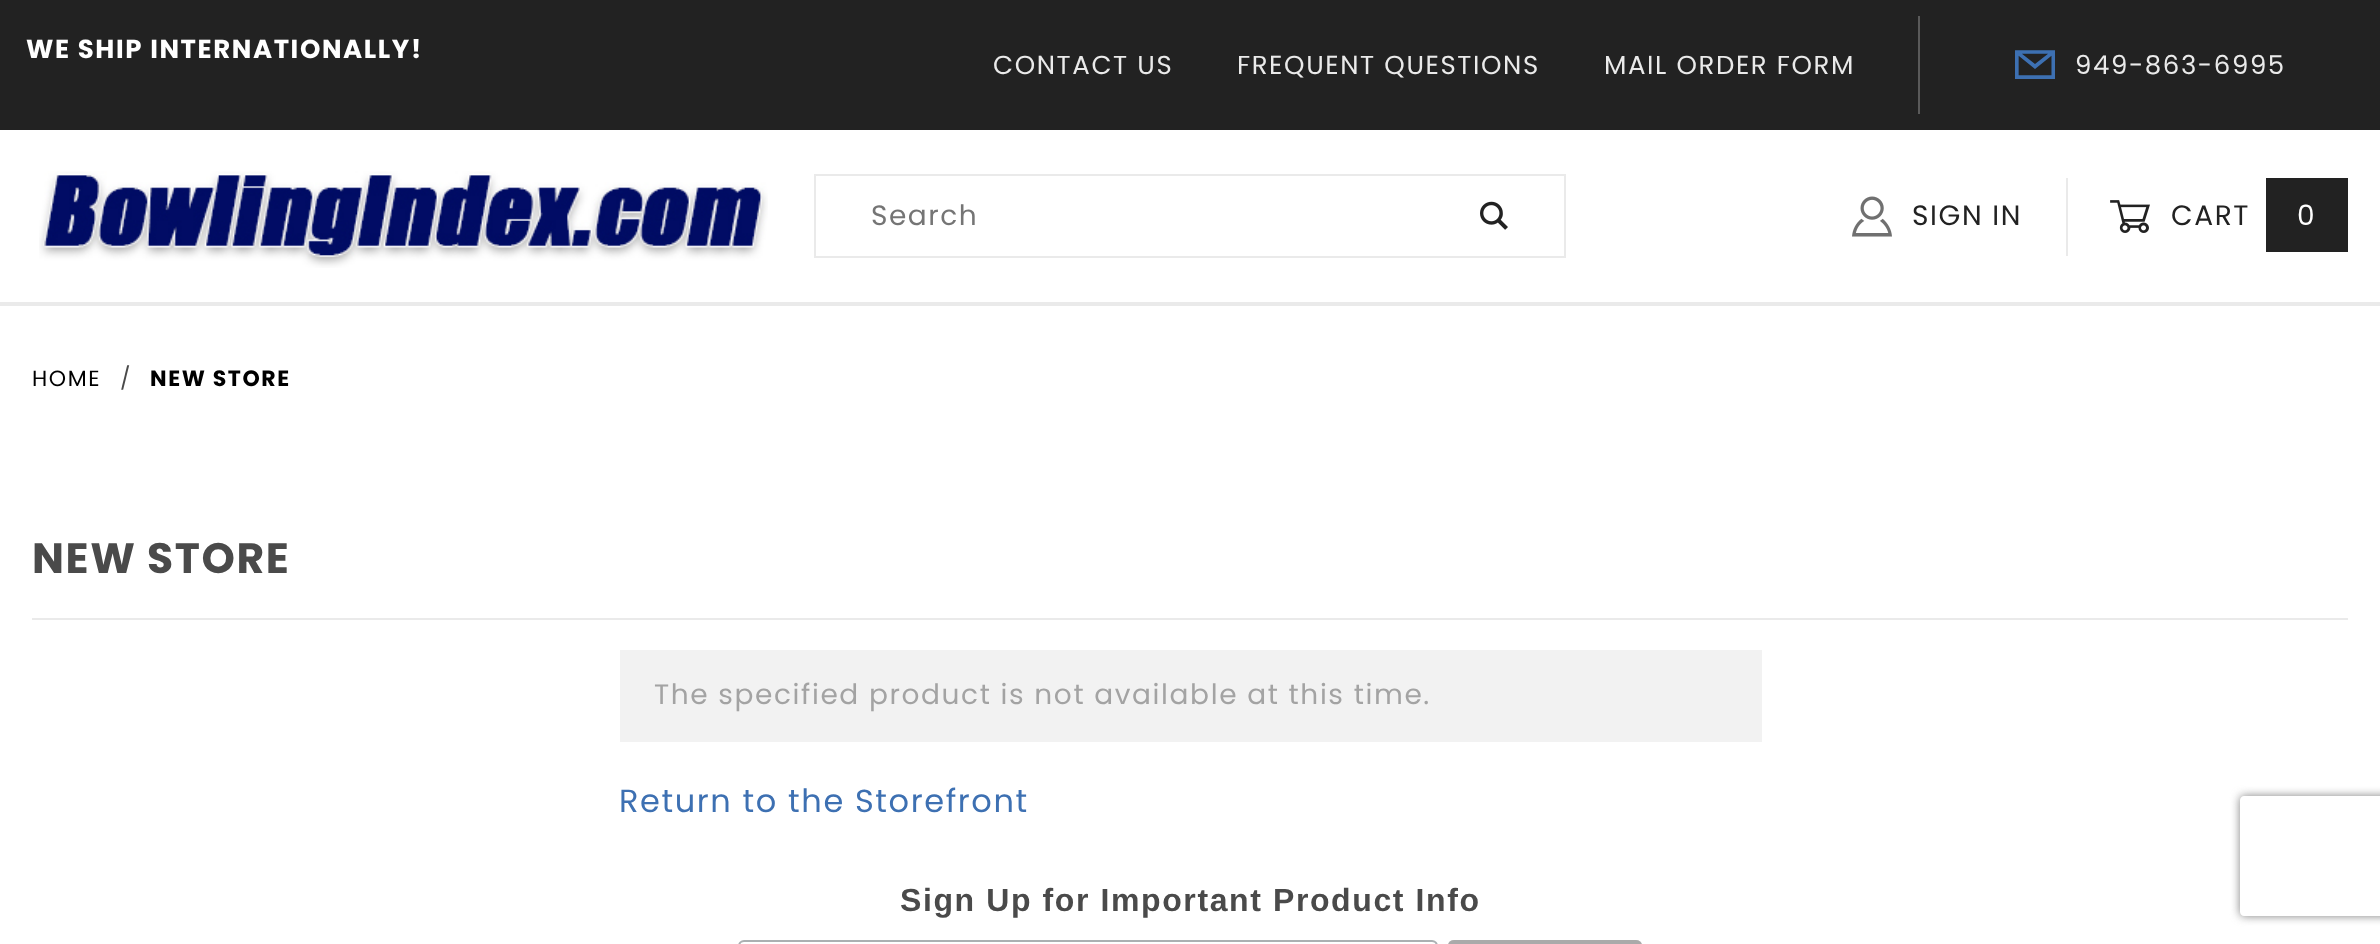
<svg xmlns="http://www.w3.org/2000/svg" width="2380" height="944" viewBox="0 0 2380 944">
  <defs>
    <clipPath id="clip1"><path d="M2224 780H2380V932H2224ZM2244 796H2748C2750 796 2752 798 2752 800V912C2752 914 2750 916 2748 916H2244C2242 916 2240 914 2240 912V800C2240 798 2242 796 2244 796Z" clip-rule="evenodd"/></clipPath>
  </defs>
  <rect width="100%" height="100%" fill="#fff"/>
  <path d="M0 302h2380v4H0z" fill="#eaeaea"/>
  <path d="M0 0h2380v130H0z" fill="#222"/>
  <path d="M1918 16h2v98H1918z" fill="#5a5a5a"/>
  <image x="39" y="171" width="729" height="97" href="img/1.png"/>
  <path d="M815 175h750v82H815z" fill="none" stroke="#eaeaea" stroke-width="2"/>
  <image x="1480" y="201" width="28" height="29" href="img/2.png"/>
  <path d="M2066 178h2v78H2066z" fill="#eaeaea"/>
  <image x="1852" y="196" width="40" height="41" href="img/3.png"/>
  <image x="2110" y="200" width="40" height="33" href="img/4.png"/>
  <path d="M2266 178h82v74H2266z" fill="#222"/>
  <path d="M32 618h2316v2H32z" fill="#eaeaea"/>
  <path d="M620 650h1142v92H620z" fill="#f2f2f2"/>
  <rect x="739" y="941" width="698" height="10" rx="5" fill="none" stroke="#abb0b2" stroke-width="2"/>
  <rect x="1448" y="940" width="194" height="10" rx="6" fill="#aaa"/>
  <g clip-path="url(#clip1)">
    <rect x="2240" y="796" width="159" height="120" rx="4" fill="#808080" filter="blur(5px)"/>
  </g>
  <text x="26" y="58" font-family="Poppins" font-size="26" font-weight="bold" letter-spacing="1.6" fill="#fff">WE SHIP INTERNATIONALLY!</text>
  <g font-family="Poppins" font-size="26" letter-spacing="1.6" fill="#eaeaea">
    <text x="993" y="74">CONTACT US</text>
    <text x="1237" y="74">FREQUENT QUESTIONS</text>
    <text x="1604" y="74">MAIL ORDER FORM</text>
  </g>
  <text x="2015" y="82" font-family="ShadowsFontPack" font-size="40" letter-spacing="1.6" fill="#3d70b2">)</text>
  <text x="2075" y="74" font-family="Poppins" font-size="26" letter-spacing="1.6" fill="#eaeaea">949-863-6995</text>
  <text x="871" y="225" font-family="Poppins" font-size="28" letter-spacing="1.5" fill="#757575">Search</text>
  <g font-family="Poppins" font-size="28" letter-spacing="1.6" fill="#222">
    <text x="1912" y="225">SIGN IN</text>
    <text x="2171" y="225">CART</text>
  </g>
  <text x="2297" y="225" font-family="Poppins" font-size="28" letter-spacing="1.6" fill="#fff">0</text>
  <text x="32" y="386" font-family="Poppins" font-size="22" letter-spacing="1.6" fill="#000">HOME</text>
  <text x="120" y="386" font-family="Poppins" font-size="22" letter-spacing="1.6" fill="#4a4a4a">/</text>
  <text x="150" y="386" font-family="Poppins" font-size="22" font-weight="bold" letter-spacing="1.6" fill="#000">NEW STORE</text>
  <text x="32" y="573" font-family="Poppins" font-size="42.5" font-weight="bold" letter-spacing="1.6" fill="#4a4a4a">NEW STORE</text>
  <text x="654" y="704" font-family="Poppins" font-size="28" letter-spacing="1.6" fill="#a3a3a3">The specified product is not available at this time.</text>
  <text x="619" y="812" font-family="Poppins" font-size="32" letter-spacing="1.6" fill="#3d70b2">Return to the Storefront</text>
  <text x="900" y="911" font-family="Liberation Sans" font-size="32" font-weight="bold" letter-spacing="1.6" fill="#4a4a4a">Sign Up for Important Product Info</text>
</svg>
